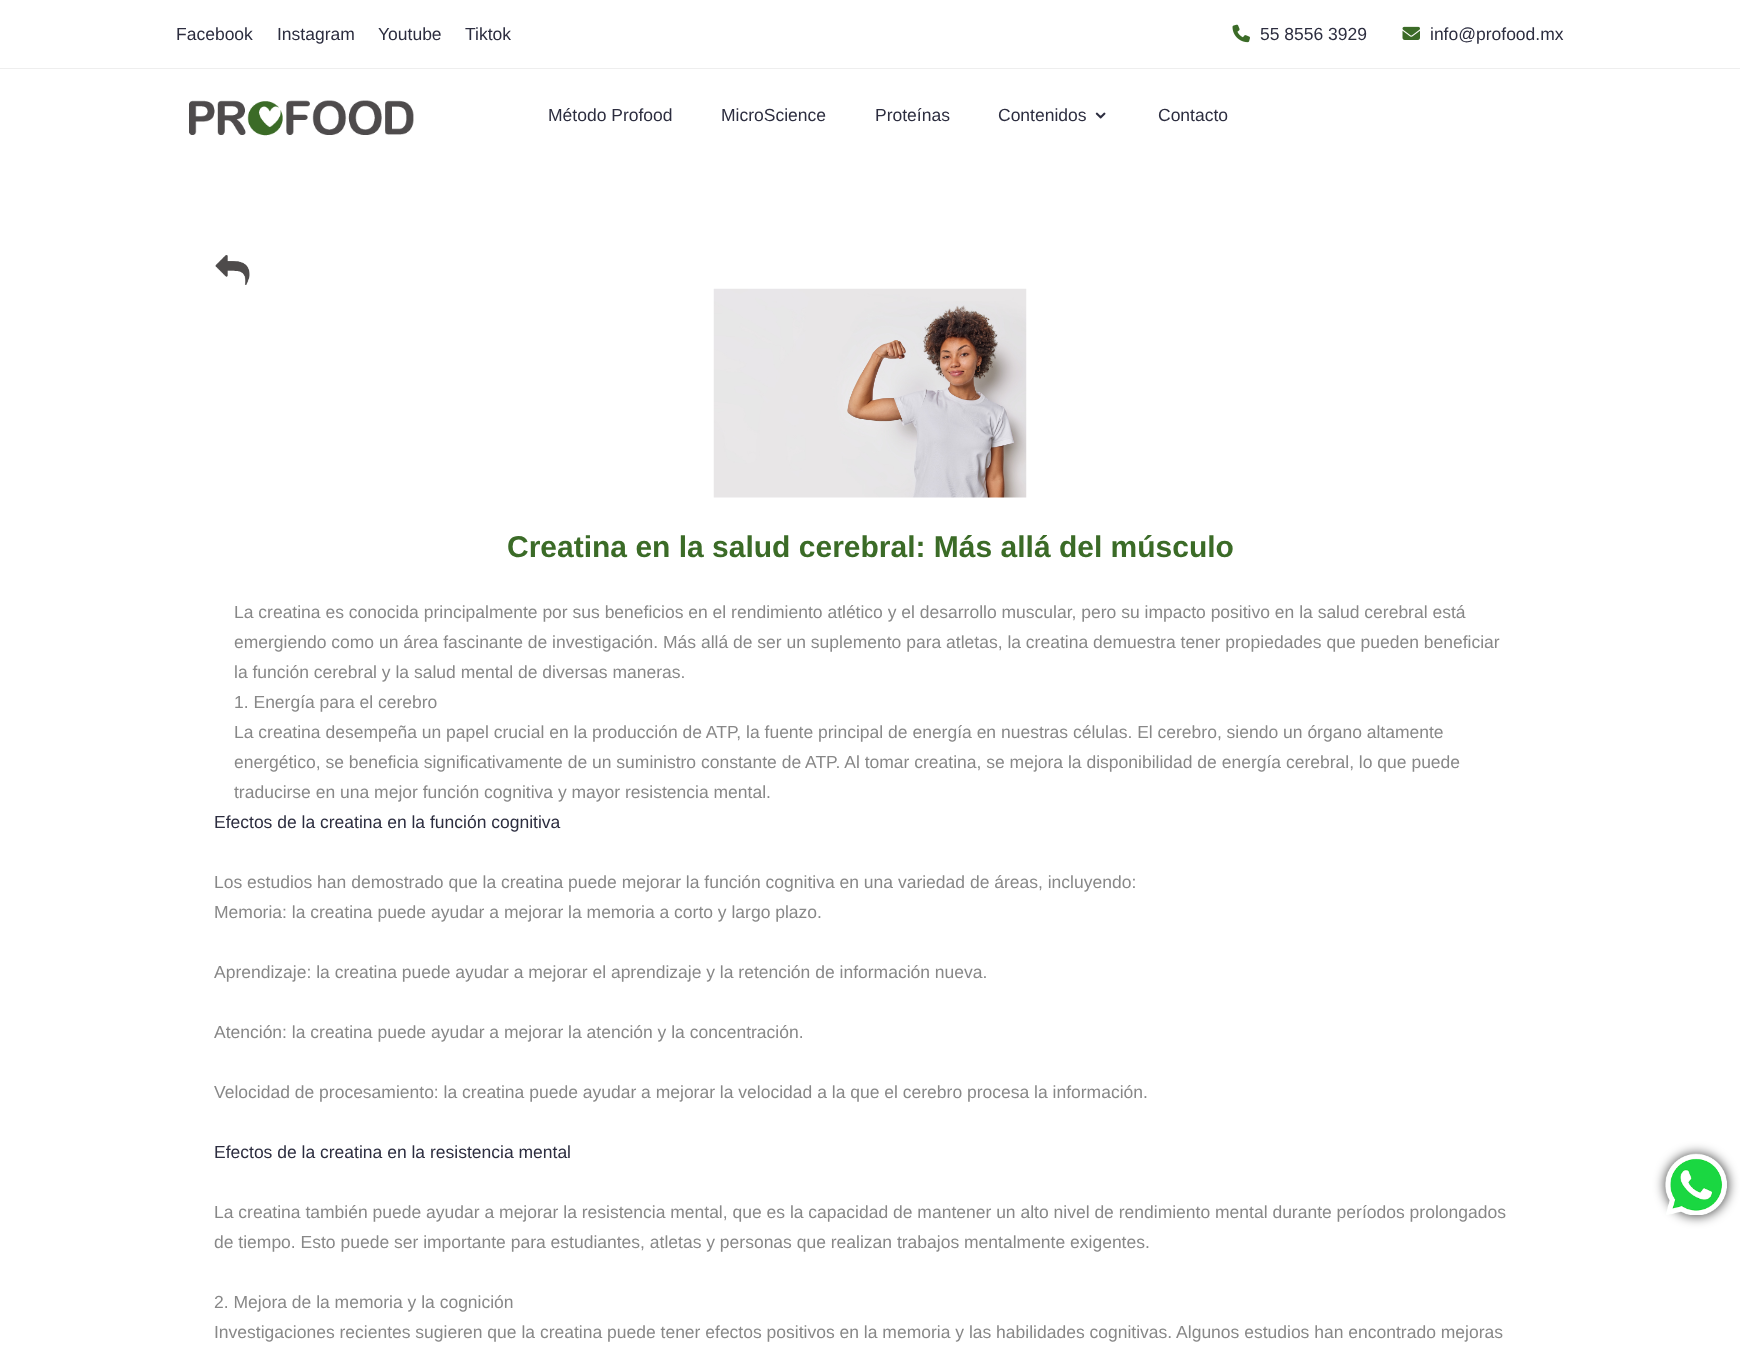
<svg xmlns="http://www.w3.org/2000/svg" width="1740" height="1360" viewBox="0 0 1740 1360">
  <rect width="100%" height="100%" fill="#fff"/>
  <path d="M0 68h1740v1H0z" fill="#eee"/>
  <image x="1232" y="24" width="18" height="19" href="img/1.png"/>
  <image x="1402" y="26" width="18" height="14" href="img/2.png"/>
  <image x="189" y="100" width="225" height="36" href="img/3.png"/>
  <image x="1095" y="112" width="11" height="7" href="img/4.png"/>
  <image x="215" y="255" width="35" height="30" href="img/5.png"/>
  <image x="713" y="288" width="314" height="210" href="img/6.png"/>
  <rect x="1665" y="1154" width="63" height="62" rx="31" fill="#000000bf" filter="blur(6px)"/>
  <image x="1665" y="1153" width="62" height="62" href="img/7.png"/>
  <g font-family="Liberation Sans" font-size="17.5" fill="#2c2d3f">
    <text x="176" y="40">Facebook</text>
    <text x="277" y="40">Instagram</text>
    <text x="378" y="40">Youtube</text>
    <text x="465" y="40">Tiktok</text>
    <text x="1260" y="40">55 8556 3929</text>
    <text x="1430" y="40">info@profood.mx</text>
    <text x="548" y="121">Método Profood</text>
    <text x="721" y="121">MicroScience</text>
    <text x="875" y="121">Proteínas</text>
    <text x="998" y="121">Contenidos</text>
    <text x="1158" y="121">Contacto</text>
  </g>
  <text x="507" y="557" font-family="Liberation Sans" font-size="30" font-weight="bold" fill="#3b6b27">Creatina en la salud cerebral: Más allá del músculo</text>
  <g font-family="Liberation Sans" font-size="17.5" fill="#888">
    <text x="234" y="618">La creatina es conocida principalmente por sus beneficios en el rendimiento atlético y el desarrollo muscular, pero su impacto positivo en la salud cerebral está</text>
    <text x="234" y="648">emergiendo como un área fascinante de investigación. Más allá de ser un suplemento para atletas, la creatina demuestra tener propiedades que pueden beneficiar</text>
    <text x="234" y="678">la función cerebral y la salud mental de diversas maneras.</text>
    <text x="234" y="708">1. Energía para el cerebro</text>
    <text x="234" y="738">La creatina desempeña un papel crucial en la producción de ATP, la fuente principal de energía en nuestras células. El cerebro, siendo un órgano altamente</text>
    <text x="234" y="768">energético, se beneficia significativamente de un suministro constante de ATP. Al tomar creatina, se mejora la disponibilidad de energía cerebral, lo que puede</text>
    <text x="234" y="798">traducirse en una mejor función cognitiva y mayor resistencia mental.</text>
  </g>
  <text x="214" y="828" font-family="Liberation Sans" font-size="17.5" fill="#2c2d3f">Efectos de la creatina en la función cognitiva</text>
  <g font-family="Liberation Sans" font-size="17.5" fill="#888">
    <text x="214" y="888">Los estudios han demostrado que la creatina puede mejorar la función cognitiva en una variedad de áreas, incluyendo:</text>
    <text x="214" y="918">Memoria: la creatina puede ayudar a mejorar la memoria a corto y largo plazo.</text>
    <text x="214" y="978">Aprendizaje: la creatina puede ayudar a mejorar el aprendizaje y la retención de información nueva.</text>
    <text x="214" y="1038">Atención: la creatina puede ayudar a mejorar la atención y la concentración.</text>
    <text x="214" y="1098">Velocidad de procesamiento: la creatina puede ayudar a mejorar la velocidad a la que el cerebro procesa la información.</text>
  </g>
  <text x="214" y="1158" font-family="Liberation Sans" font-size="17.5" fill="#2c2d3f">Efectos de la creatina en la resistencia mental</text>
  <g font-family="Liberation Sans" font-size="17.5" fill="#888">
    <text x="214" y="1218">La creatina también puede ayudar a mejorar la resistencia mental, que es la capacidad de mantener un alto nivel de rendimiento mental durante períodos prolongados</text>
    <text x="214" y="1248">de tiempo. Esto puede ser importante para estudiantes, atletas y personas que realizan trabajos mentalmente exigentes.</text>
    <text x="214" y="1308">2. Mejora de la memoria y la cognición</text>
    <text x="214" y="1338">Investigaciones recientes sugieren que la creatina puede tener efectos positivos en la memoria y las habilidades cognitivas. Algunos estudios han encontrado mejoras</text>
  </g>
</svg>
